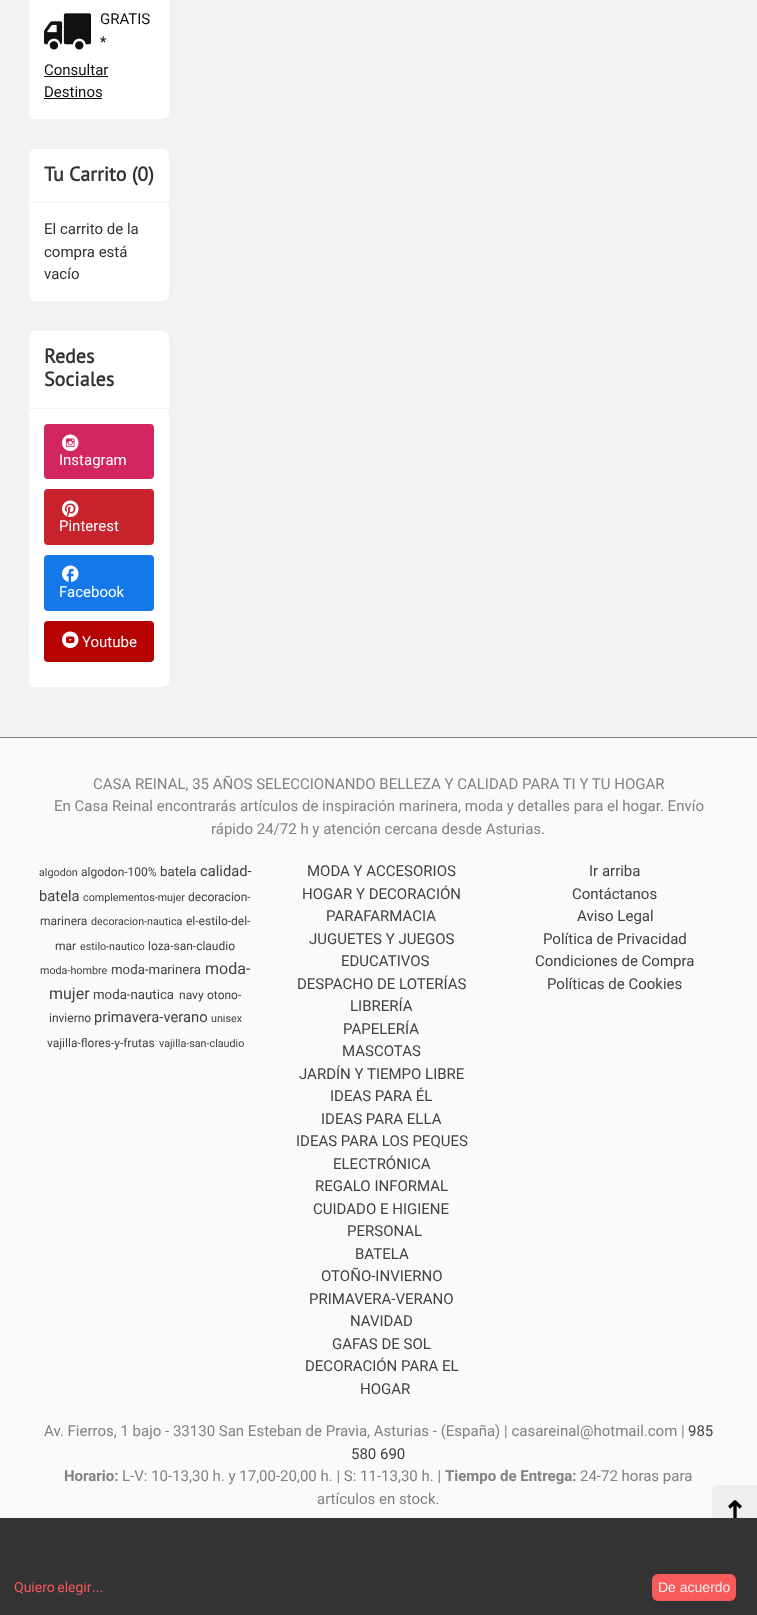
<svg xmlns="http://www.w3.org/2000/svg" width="757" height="1615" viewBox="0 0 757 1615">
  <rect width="100%" height="100%" fill="#f2f2f2"/>
  <rect x="29" y="-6" width="140" height="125" rx="6" fill="#fff"/>
  <image x="44" y="13" width="48" height="37" href="img/1.png"/>
  <path d="M44 76h64v1H44z" fill="#111"/>
  <path d="M44 98h58v1H44z" fill="#111"/>
  <rect x="29" y="149" width="140" height="152" rx="6" fill="#fff"/>
  <path d="M29 202h140v1H29z" fill="#f2f2f2"/>
  <rect x="29" y="331" width="140" height="356" rx="6" fill="#fff"/>
  <path d="M29 408h140v1H29z" fill="#f2f2f2"/>
  <rect x="44" y="424" width="110" height="55" rx="4" fill="#d22660"/>
  <image x="62" y="434" width="17" height="17" href="img/2.png"/>
  <rect x="44" y="489" width="110" height="56" rx="4" fill="#c8232c"/>
  <image x="62" y="500" width="17" height="17" href="img/3.png"/>
  <rect x="44" y="555" width="110" height="56" rx="4" fill="#1478eb"/>
  <image x="62" y="565" width="17" height="17" href="img/4.png"/>
  <rect x="44" y="621" width="110" height="41" rx="4" fill="#b70202"/>
  <image x="62" y="631" width="17" height="17" href="img/5.png"/>
  <path d="M0 738h757v780H0z" fill="#fafafa"/>
  <path d="M0 737h757v1H0z" fill="#808080"/>
  <path d="M716 1485H757V1540H716C714 1540 712 1538 712 1536V1489C712 1487 714 1485 716 1485Z" fill="#eee"/>
  <g font-family="Roboto" font-size="15" fill="#111">
    <text x="100" y="24">GRATIS</text>
    <text x="100" y="47">*</text>
    <text x="44" y="75">Consultar</text>
    <text x="44" y="97">Destinos</text>
  </g>
  <text x="44" y="181" font-family="PT Sans" font-size="20" font-weight="bold" fill="#333">Tu Carrito (0)</text>
  <g font-family="Roboto" font-size="15" fill="#333">
    <text x="44" y="234">El carrito de la</text>
    <text x="44" y="257">compra está</text>
    <text x="44" y="279">vacío</text>
  </g>
  <g font-family="PT Sans" font-size="20" font-weight="bold" fill="#333">
    <text x="44" y="363">Redes</text>
    <text x="44" y="386">Sociales</text>
  </g>
  <g font-family="Roboto" font-size="15" fill="#fff">
    <text x="59" y="465">Instagram</text>
    <text x="59" y="531">Pinterest</text>
    <text x="59" y="597">Facebook</text>
    <text x="82" y="647">Youtube</text>
  </g>
  <g font-family="Roboto" font-size="15" fill="#828282">
    <text x="93" y="789">CASA REINAL, 35 AÑOS SELECCIONANDO BELLEZA Y CALIDAD PARA TI Y TU HOGAR</text>
    <text x="54" y="811">En Casa Reinal encontrarás artículos de inspiración marinera, moda y detalles para el hogar. Envío</text>
    <text x="211" y="834">rápido 24/72 h y atención cercana desde Asturias.</text>
  </g>
  <text x="39" y="876" font-family="Roboto" font-size="10.75" fill="#424242">algodon</text>
  <text x="81" y="876" font-family="Roboto" font-size="12" fill="#424242">algodon-100%</text>
  <text x="160" y="876" font-family="Roboto" font-size="13.25" fill="#424242">batela</text>
  <g font-family="Roboto" font-size="14.75" fill="#424242">
    <text x="200" y="876">calidad-</text>
    <text x="39" y="901">batela</text>
  </g>
  <text x="83" y="901" font-family="Roboto" font-size="10.75" fill="#424242">complementos-mujer</text>
  <g font-family="Roboto" font-size="12" fill="#424242">
    <text x="188" y="901">decoracion-</text>
    <text x="40" y="925">marinera</text>
  </g>
  <text x="91" y="925" font-family="Roboto" font-size="10.75" fill="#424242">decoracion-nautica</text>
  <g font-family="Roboto" font-size="12" fill="#424242">
    <text x="186" y="925">el-estilo-del-</text>
    <text x="55" y="950">mar</text>
  </g>
  <text x="80" y="950" font-family="Roboto" font-size="10.75" fill="#424242">estilo-nautico</text>
  <text x="148" y="950" font-family="Roboto" font-size="12" fill="#424242">loza-san-claudio</text>
  <text x="40" y="974" font-family="Roboto" font-size="10.75" fill="#424242">moda-hombre</text>
  <text x="111" y="974" font-family="Roboto" font-size="13.25" fill="#424242">moda-marinera</text>
  <g font-family="Roboto" font-size="16" fill="#424242">
    <text x="205" y="974">moda-</text>
    <text x="49" y="999">mujer</text>
  </g>
  <text x="93" y="999" font-family="Roboto" font-size="13.25" fill="#424242">moda-nautica</text>
  <g font-family="Roboto" font-size="12" fill="#424242">
    <text x="179" y="999">navy</text>
    <text x="207" y="999">otono-</text>
    <text x="49" y="1022">invierno</text>
  </g>
  <text x="94" y="1022" font-family="Roboto" font-size="14.75" fill="#424242">primavera-verano</text>
  <text x="211" y="1022" font-family="Roboto" font-size="10.75" fill="#424242">unisex</text>
  <text x="47" y="1047" font-family="Roboto" font-size="12" fill="#424242">vajilla-flores-y-frutas</text>
  <text x="159" y="1047" font-family="Roboto" font-size="10.75" fill="#424242">vajilla-san-claudio</text>
  <g font-family="Roboto" font-size="15" fill="#424242">
    <text x="307" y="876">MODA Y ACCESORIOS</text>
    <text x="302" y="899">HOGAR Y DECORACIÓN</text>
    <text x="326" y="921">PARAFARMACIA</text>
    <text x="309" y="944">JUGUETES Y JUEGOS</text>
    <text x="341" y="966">EDUCATIVOS</text>
    <text x="297" y="989">DESPACHO DE LOTERÍAS</text>
    <text x="350" y="1011">LIBRERÍA</text>
    <text x="343" y="1034">PAPELERÍA</text>
    <text x="342" y="1056">MASCOTAS</text>
    <text x="299" y="1079">JARDÍN Y TIEMPO LIBRE</text>
    <text x="330" y="1101">IDEAS PARA ÉL</text>
    <text x="321" y="1124">IDEAS PARA ELLA</text>
    <text x="296" y="1146">IDEAS PARA LOS PEQUES</text>
    <text x="333" y="1169">ELECTRÓNICA</text>
    <text x="315" y="1191">REGALO INFORMAL</text>
    <text x="313" y="1214">CUIDADO E HIGIENE</text>
    <text x="347" y="1236">PERSONAL</text>
    <text x="355" y="1259">BATELA</text>
    <text x="321" y="1281">OTOÑO-INVIERNO</text>
    <text x="309" y="1304">PRIMAVERA-VERANO</text>
    <text x="350" y="1326">NAVIDAD</text>
    <text x="332" y="1349">GAFAS DE SOL</text>
    <text x="305" y="1371">DECORACIÓN PARA EL</text>
    <text x="360" y="1394">HOGAR</text>
    <text x="589" y="876">Ir arriba</text>
    <text x="572" y="899">Contáctanos</text>
    <text x="577" y="921">Aviso Legal</text>
    <text x="543" y="944">Política de Privacidad</text>
    <text x="535" y="966">Condiciones de Compra</text>
    <text x="547" y="989">Políticas de Cookies</text>
  </g>
  <text x="44" y="1436" font-family="Roboto" font-size="15" fill="#828282">Av. Fierros, 1 bajo - 33130 San Esteban de Pravia, Asturias - (España) | casareinal@hotmail.com |</text>
  <g font-family="Roboto" font-size="15" fill="#424242">
    <text x="688" y="1436">985</text>
    <text x="351" y="1459">580 690</text>
  </g>
  <text x="64" y="1481" font-family="Roboto" font-size="15" font-weight="bold" fill="#828282">Horario:</text>
  <text x="122" y="1481" font-family="Roboto" font-size="15" fill="#828282">L-V: 10-13,30 h. y 17,00-20,00 h. | S: 11-13,30 h. |</text>
  <text x="445" y="1481" font-family="Roboto" font-size="15" font-weight="bold" fill="#828282">Tiempo de Entrega:</text>
  <g font-family="Roboto" font-size="15" fill="#828282">
    <text x="580" y="1481">24-72 horas para</text>
    <text x="317" y="1504">artículos en stock.</text>
  </g>
  <text x="722" y="1523" font-family="DejaVu Sans" font-size="30" font-weight="bold" fill="#000">↥</text>
  <path d="M0 1518h757v97H0z" fill="#333"/>
  <g font-family="Roboto" font-size="14" fill="#f75a5a">
    <text x="14" y="1592" word-spacing="-1">Quiero elegir</text>
    <text x="92" y="1592">...</text>
  </g>
  <rect x="652" y="1574" width="84" height="27" rx="6" fill="#f75a5a"/>
  <text x="658" y="1592" font-family="Liberation Sans" font-size="14" fill="#eee">De acuerdo</text>
</svg>
